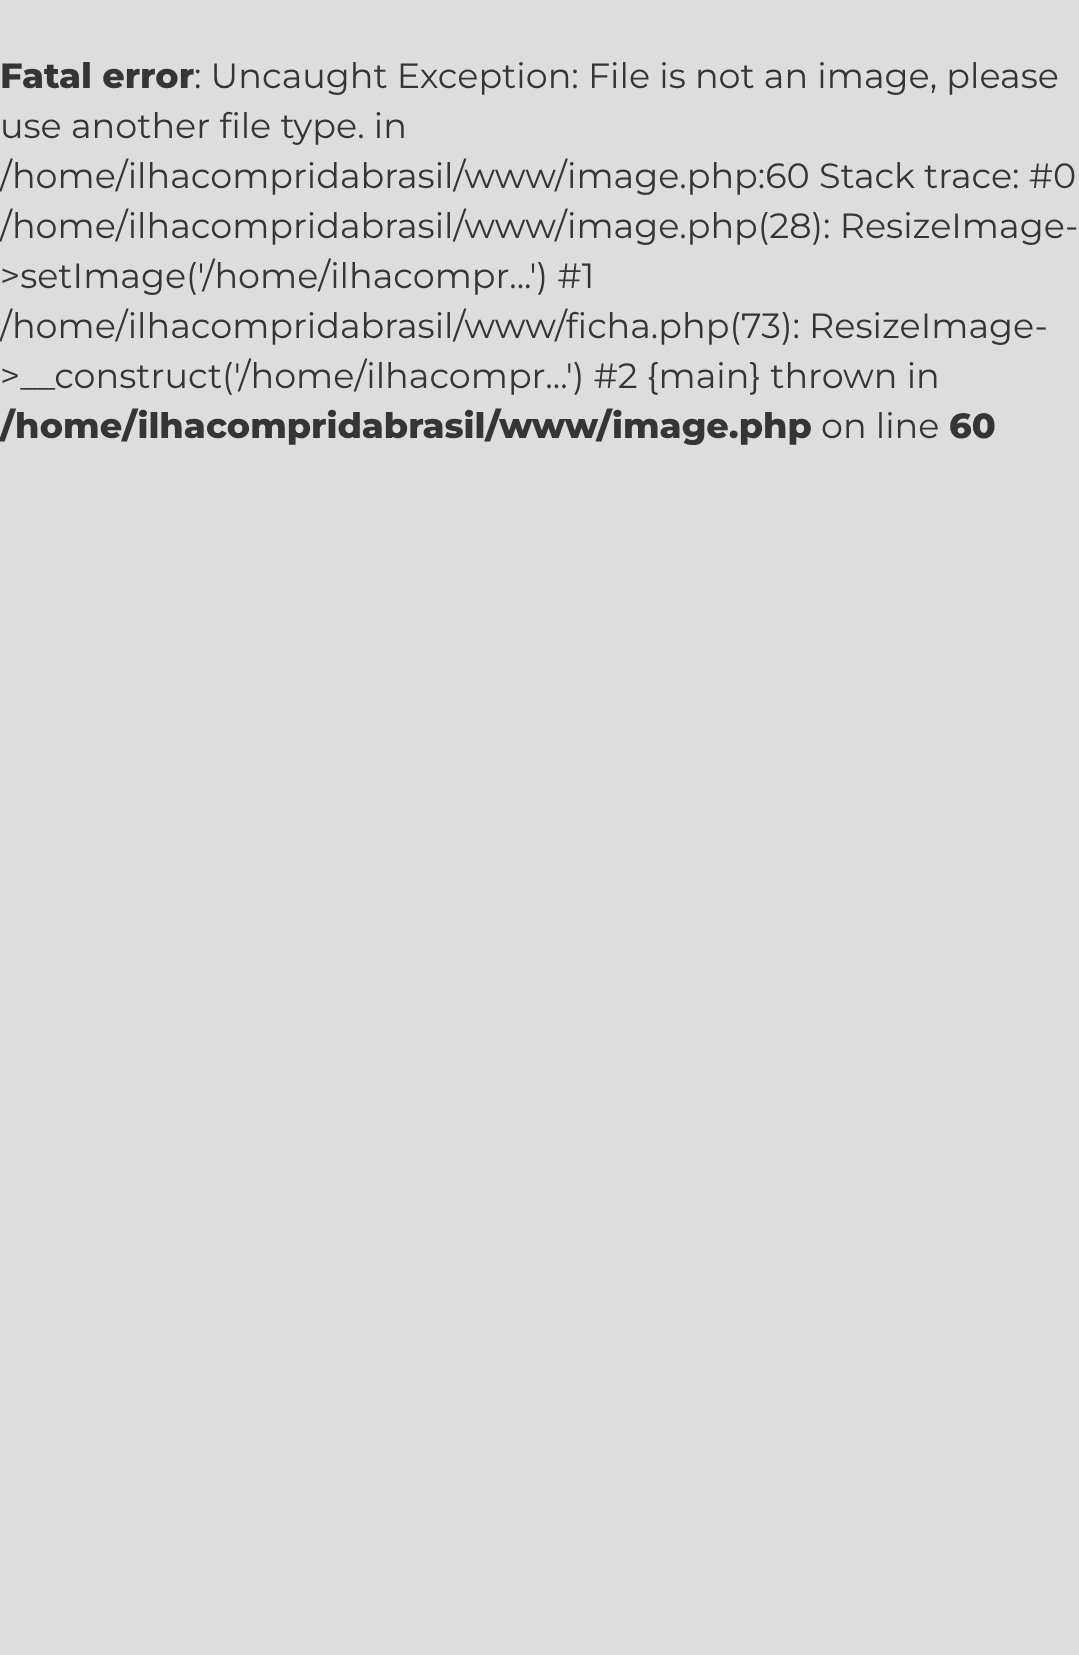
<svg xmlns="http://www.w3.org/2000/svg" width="1079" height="1655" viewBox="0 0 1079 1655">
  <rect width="100%" height="100%" fill="#ddd"/>
  <text x="0" y="88" font-family="Montserrat" font-size="35" font-weight="800" fill="#353535">Fatal error</text>
  <g font-family="Montserrat" font-size="35" fill="#353535">
    <text x="194" y="88">: Uncaught Exception: File is not an image, please</text>
    <text x="0" y="138">use another file type. in</text>
    <text x="0" y="188">/home/ilhacompridabrasil/www/image.php:60 Stack trace: #0</text>
    <text x="0" y="238">/home/ilhacompridabrasil/www/image.php(28): ResizeImage-</text>
    <text x="0" y="288">&gt;setImage('/home/ilhacompr...') #1</text>
    <text x="0" y="338">/home/ilhacompridabrasil/www/ficha.php(73): ResizeImage-</text>
    <text x="0" y="388">&gt;__construct('/home/ilhacompr...') #2 {main} thrown in</text>
  </g>
  <text x="0" y="438" font-family="Montserrat" font-size="35" font-weight="800" fill="#353535">/home/ilhacompridabrasil/www/image.php</text>
  <text x="821" y="438" font-family="Montserrat" font-size="35" fill="#353535">on line</text>
  <text x="949" y="438" font-family="Montserrat" font-size="35" font-weight="800" fill="#353535">60</text>
</svg>
